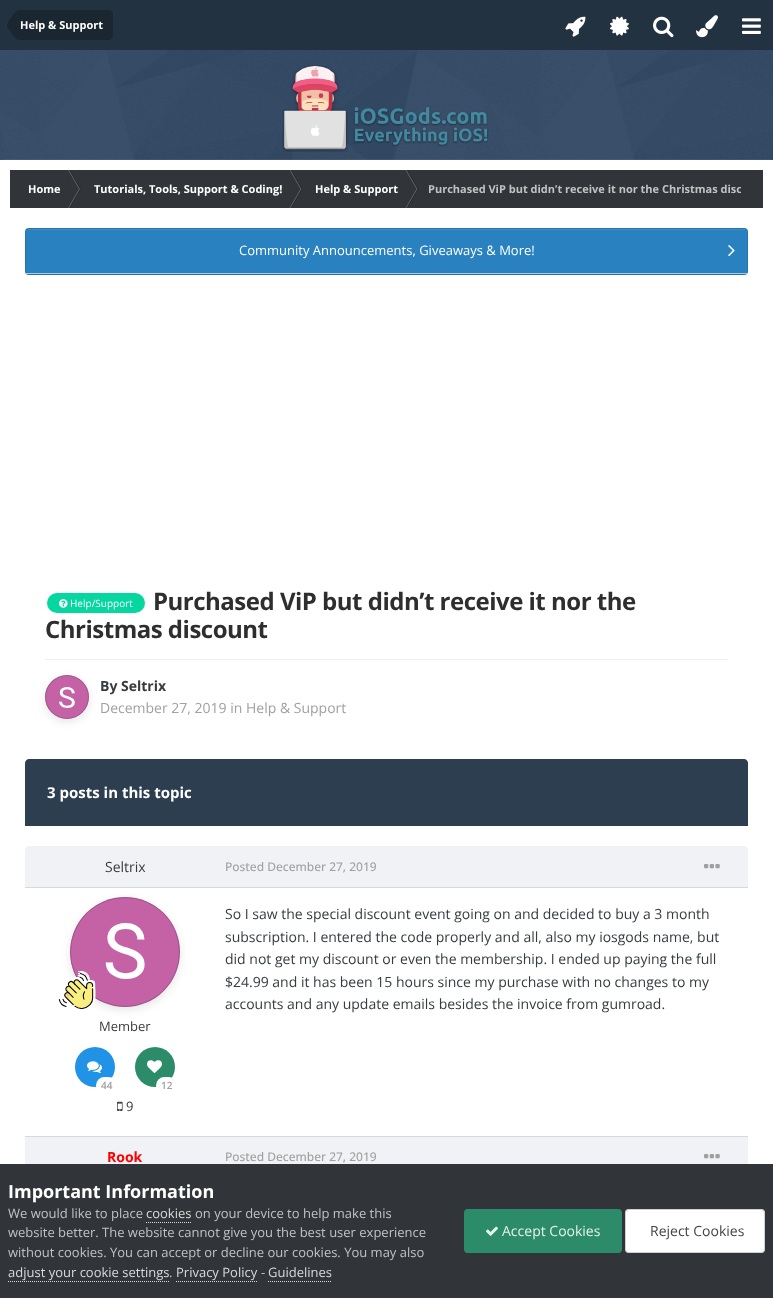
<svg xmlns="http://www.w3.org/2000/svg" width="773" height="1298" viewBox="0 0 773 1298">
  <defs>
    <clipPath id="clip1"><path d="M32 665H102V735H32ZM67 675C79 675 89 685 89 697C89 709 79 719 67 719C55 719 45 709 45 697C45 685 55 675 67 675Z" clip-rule="evenodd"/></clipPath>
    <clipPath id="clip2"><path d="M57 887H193V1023H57ZM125 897C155.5 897 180 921.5 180 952C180 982.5 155.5 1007 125 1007C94.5 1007 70 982.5 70 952C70 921.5 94.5 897 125 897Z" clip-rule="evenodd"/></clipPath>
    <clipPath id="clip3"><path d="M10 170h731v38H10z"/></clipPath>
  </defs>
  <rect width="100%" height="100%" fill="#233240"/>
  <path d="M20 10H108C111 10 113 12 113 15V35C113 38 111 40 108 40H20Z" fill="#1a2630"/>
  <path d="M20 25V40C15.5 40 13.5 35.5 11 32C9.5 30 7 28 7 25ZM20 25H7C7 22 9.5 20 11 18C13.5 14.5 15.5 10 20 10Z" fill="#1a2630"/>
  <image x="565" y="16" width="21" height="21" href="img/1.png"/>
  <image x="610" y="16" width="19" height="20" href="img/2.png"/>
  <image x="653" y="16" width="21" height="22" href="img/3.png"/>
  <image x="696" y="15" width="22" height="23" href="img/4.png"/>
  <image x="742" y="18" width="19" height="16" href="img/5.png"/>
  <path d="M0 50h773v110H0z" fill="#2e4461"/>
  <image x="0" y="50" width="773" height="110" href="img/6.png"/>
  <image x="282" y="65" width="207" height="87" href="img/7.png"/>
  <rect y="161" width="773" height="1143" rx="3" fill="#dbdbdb" filter="blur(1px)"/>
  <path d="M0 160h773v1004H0z" fill="#fff"/>
  <path d="M10 170h753v38H10z" fill="#313438"/>
  <path d="M68 170H69L80 189H79Z" fill="#65676a"/>
  <path d="M69 170H70L81 189H80Z" fill="#00000033"/>
  <path d="M289.5 170H290.5L301.5 189H300.5Z" fill="#65676a"/>
  <path d="M290.5 170H291.5L302.5 189H301.5Z" fill="#00000033"/>
  <path d="M405.5 170H406.5L417.5 189H416.5Z" fill="#65676a"/>
  <path d="M406.5 170H407.5L418.5 189H417.5Z" fill="#00000033"/>
  <path d="M68 170h340v1H68z" fill="#353c4133"/>
  <path d="M68 208H69L80 189H79Z" fill="#65676a"/>
  <path d="M69 208H70L81 189H80Z" fill="#00000033"/>
  <path d="M289.5 208H290.5L301.5 189H300.5Z" fill="#65676a"/>
  <path d="M290.5 208H291.5L302.5 189H301.5Z" fill="#00000033"/>
  <path d="M405.5 208H406.5L417.5 189H416.5Z" fill="#65676a"/>
  <path d="M406.5 208H407.5L418.5 189H417.5Z" fill="#00000033"/>
  <path d="M68 207h340v1H68z" fill="#353c4133"/>
  <rect x="25" y="228" width="723" height="47" rx="4" fill="#2981bf"/>
  <path d="M29 230H744C746 230 747 231 747 233C747 231 746 229 744 229H29C27 229 26 231 26 233C26 231 27 230 29 230Z" fill="#3e8ec5"/>
  <rect x="25.5" y="228.5" width="722" height="46" rx="3.5" fill="none" stroke="#0000001a"/>
  <path d="M26 273h721v1H26z" fill="#ffffff99"/>
  <image x="728" y="245" width="7" height="12" href="img/8.png"/>
  <rect x="47" y="593" width="98" height="20" rx="10" fill="#06d6a0"/>
  <image x="59" y="599" width="9" height="9" href="img/9.png"/>
  <path d="M45 659h683v1H45z" fill="#efeff0"/>
  <image x="45" y="675" width="44" height="44" href="img/10.png"/>
  <g clip-path="url(#clip1)">
    <rect x="45" y="678" width="44" height="44" rx="22" fill="#0000001a" filter="blur(4px)"/>
  </g>
  <circle cx="67" cy="697" r="21.5" fill="none" stroke="#353c414d"/>
  <path d="M29 759H744C746 759 748 761 748 763V826H25V763C25 761 27 759 29 759Z" fill="#2c3e50"/>
  <path d="M29 846H744C746 846 748 848 748 850V888H25V850C25 848 27 846 29 846Z" fill="#f0f2f5"/>
  <path d="M25 887h723v1H25z" fill="#d8dadd"/>
  <image x="70" y="897" width="110" height="110" href="img/11.png"/>
  <g clip-path="url(#clip2)">
    <rect x="70" y="900" width="110" height="110" rx="55" fill="#0000001a" filter="blur(4px)"/>
  </g>
  <circle cx="125" cy="952" r="54.5" fill="none" stroke="#353c414d"/>
  <image x="58" y="971" width="38" height="38" href="img/12.png"/>
  <circle cx="95" cy="1067" r="20" fill="#2193e6"/>
  <image x="87" y="1061" width="15" height="12" href="img/13.png"/>
  <rect x="96" y="1077" width="21" height="17" rx="8.5" fill="#fff"/>
  <circle cx="155" cy="1067" r="20" fill="#2c8c69"/>
  <image x="147" y="1060" width="15" height="13" href="img/14.png"/>
  <rect x="156" y="1077" width="21" height="17" rx="8.5" fill="#fff"/>
  <image x="117" y="1101" width="6" height="10" href="img/15.png"/>
  <image x="704" y="864" width="16" height="5" href="img/16.png"/>
  <path d="M25 1137h723v27H25z" fill="#f0f2f5"/>
  <path d="M25 1136h723v1H25z" fill="#d8dadd"/>
  <image x="704" y="1154" width="16" height="5" href="img/16.png"/>
  <path d="M0 1164h773v134H0z" fill="#313438"/>
  <path d="M146 1222.5H192" fill="none" stroke="#dadada" stroke-dasharray="1 1"/>
  <path d="M8 1281.5H169" fill="none" stroke="#dadada" stroke-dasharray="1 1"/>
  <path d="M176 1281.5H257" fill="none" stroke="#dadada" stroke-dasharray="1 1"/>
  <path d="M268 1281.5H332" fill="none" stroke="#dadada" stroke-dasharray="1 1"/>
  <rect x="464" y="1209" width="158" height="44" rx="4" fill="#2c8c69"/>
  <image x="486" y="1226" width="12" height="10" href="img/17.png"/>
  <rect x="625" y="1209" width="140" height="44" rx="4" fill="#fff"/>
  <rect x="625.5" y="1209.5" width="139" height="43" rx="3.5" fill="none" stroke="#44444440"/>
  <g font-family="Open Sans" font-size="11" font-weight="bold" fill="#fff">
    <text x="20" y="29">Help &amp; Support</text>
    <text x="28" y="193">Home</text>
    <text x="94" y="193">Tutorials, Tools, Support &amp; Coding!</text>
    <text x="315" y="193">Help &amp; Support</text>
  </g>
  <g clip-path="url(#clip3)">
    <text x="428" y="193" font-family="Open Sans" font-size="11" font-weight="bold" fill="#c1c2c3">Purchased ViP but didn’t receive it nor the Christmas disc</text>
  </g>
  <text x="239" y="255" font-family="Open Sans" font-size="13" fill="#fff">Community Announcements, Giveaways &amp; More!</text>
  <text x="70" y="607" font-family="Open Sans" font-size="10" fill="#fff">Help/Support</text>
  <g font-family="Open Sans" font-size="24" font-weight="bold" letter-spacing="-0.5" fill="#2e2e2e">
    <text x="153" y="610">Purchased ViP but didn’t receive it nor the</text>
    <text x="45" y="638">Christmas discount</text>
  </g>
  <text x="100" y="691" font-family="Open Sans" font-size="14" font-weight="bold" fill="#353c41">By</text>
  <text x="121" y="691" font-family="Open Sans" font-size="14" font-weight="bold" fill="#3a3a3a">Seltrix</text>
  <text x="100" y="713" font-family="Open Sans" font-size="14" fill="#a1a1a1">December 27, 2019 in Help &amp; Support</text>
  <text x="47" y="798" font-family="Open Sans" font-size="15" font-weight="bold" fill="#fff">3 posts in this topic</text>
  <text x="105" y="872" font-family="Open Sans" font-size="14" fill="#3a3a3a">Seltrix</text>
  <text x="99" y="1031" font-family="Open Sans" font-size="13" fill="#3a3a3a">Member</text>
  <g font-family="Open Sans" font-size="10" font-weight="600" fill="#a1a1a1">
    <text x="101" y="1089">44</text>
    <text x="161" y="1089">12</text>
  </g>
  <text x="126" y="1111" font-family="Open Sans" font-size="13" fill="#353c41">9</text>
  <text x="225" y="871" font-family="Open Sans" font-size="12" font-weight="500" fill="#a1a1a1">Posted December 27, 2019</text>
  <g font-family="Open Sans" font-size="14" fill="#353c41">
    <text x="225" y="919">So I saw the special discount event going on and decided to buy a 3 month</text>
    <text x="225" y="942">subscription. I entered the code properly and all, also my iosgods name, but</text>
    <text x="225" y="964">did not get my discount or even the membership. I ended up paying the full</text>
    <text x="225" y="987">$24.99 and it has been 15 hours since my purchase with no changes to my</text>
    <text x="225" y="1009">accounts and any update emails besides the invoice from gumroad.</text>
  </g>
  <text x="107" y="1162" font-family="Open Sans" font-size="14" font-weight="bold" fill="#f00">Rook</text>
  <text x="225" y="1161" font-family="Open Sans" font-size="12" font-weight="500" fill="#a1a1a1">Posted December 27, 2019</text>
  <text x="8" y="1198" font-family="Open Sans" font-size="18" font-weight="bold" fill="#fff">Important Information</text>
  <text x="8" y="1218" font-family="Open Sans" font-size="13" fill="#c1c2c3">We would like to place</text>
  <text x="146" y="1218" font-family="Open Sans" font-size="13" fill="#dadada">cookies</text>
  <g font-family="Open Sans" font-size="13" fill="#c1c2c3">
    <text x="195" y="1218">on your device to help make this</text>
    <text x="8" y="1237">website better. The website cannot give you the best user experience</text>
    <text x="8" y="1257">without cookies. You can accept or decline our cookies. You may also</text>
  </g>
  <g font-family="Open Sans" font-size="13" fill="#dadada">
    <text x="8" y="1277">adjust your cookie settings</text>
    <text x="176" y="1277">Privacy Policy</text>
  </g>
  <text x="261" y="1277" font-family="Open Sans" font-size="13" fill="#c1c2c3">-</text>
  <text x="268" y="1277" font-family="Open Sans" font-size="13" fill="#dadada">Guidelines</text>
  <text x="169" y="1277" font-family="Open Sans" font-size="13" fill="#c1c2c3">.</text>
  <text x="502" y="1236" font-family="Open Sans" font-size="14" fill="#e3f3ec">Accept Cookies</text>
  <text x="650" y="1236" font-family="Open Sans" font-size="14" fill="#444">Reject Cookies</text>
</svg>
